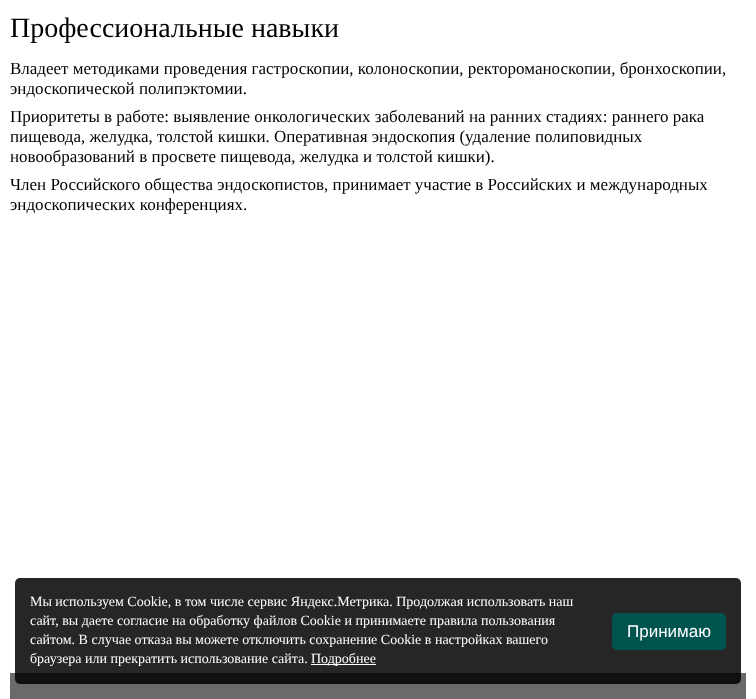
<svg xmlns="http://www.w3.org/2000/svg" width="756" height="699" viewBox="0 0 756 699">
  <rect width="100%" height="100%" fill="#fff"/>
  <path d="M10 673h736v26H10z" fill="#6a6a6a"/>
  <rect x="15" y="578" width="726" height="106" rx="5" fill="#000000d9"/>
  <path d="M311 664h65v1H311z" fill="#fff"/>
  <rect x="612" y="613" width="114" height="37" rx="5" fill="#005450"/>
  <text x="10" y="37" font-family="Liberation Serif" font-size="28" fill="#000">Профессиональные навыки</text>
  <g font-family="Liberation Serif" font-size="17" fill="#000">
    <text x="10" y="74">Владеет методиками проведения гастроскопии, колоноскопии, ректороманоскопии, бронхоскопии,</text>
    <text x="10" y="94">эндоскопической полипэктомии.</text>
    <text x="10" y="122">Приоритеты в работе: выявление онкологических заболеваний на ранних стадиях: раннего рака</text>
    <text x="10" y="142">пищевода, желудка, толстой кишки. Оперативная эндоскопия (удаление полиповидных</text>
    <text x="10" y="162">новообразований в просвете пищевода, желудка и толстой кишки).</text>
    <text x="10" y="190">Член Российского общества эндоскопистов, принимает участие в Российских и международных</text>
    <text x="10" y="210">эндоскопических конференциях.</text>
  </g>
  <g font-family="Liberation Serif" font-size="14" fill="#fff">
    <text x="30" y="606">Мы используем Cookie, в том числе сервис Яндекс.Метрика. Продолжая использовать наш</text>
    <text x="30" y="625">сайт, вы даете согласие на обработку файлов Cookie и принимаете правила пользования</text>
    <text x="30" y="644">сайтом. В случае отказа вы можете отключить сохранение Cookie в настройках вашего</text>
    <text x="30" y="663">браузера или прекратить использование сайта.</text>
    <text x="311" y="663">Подробнее</text>
  </g>
  <text x="627" y="637" font-family="Liberation Sans" font-size="17" fill="#fff">Принимаю</text>
</svg>
